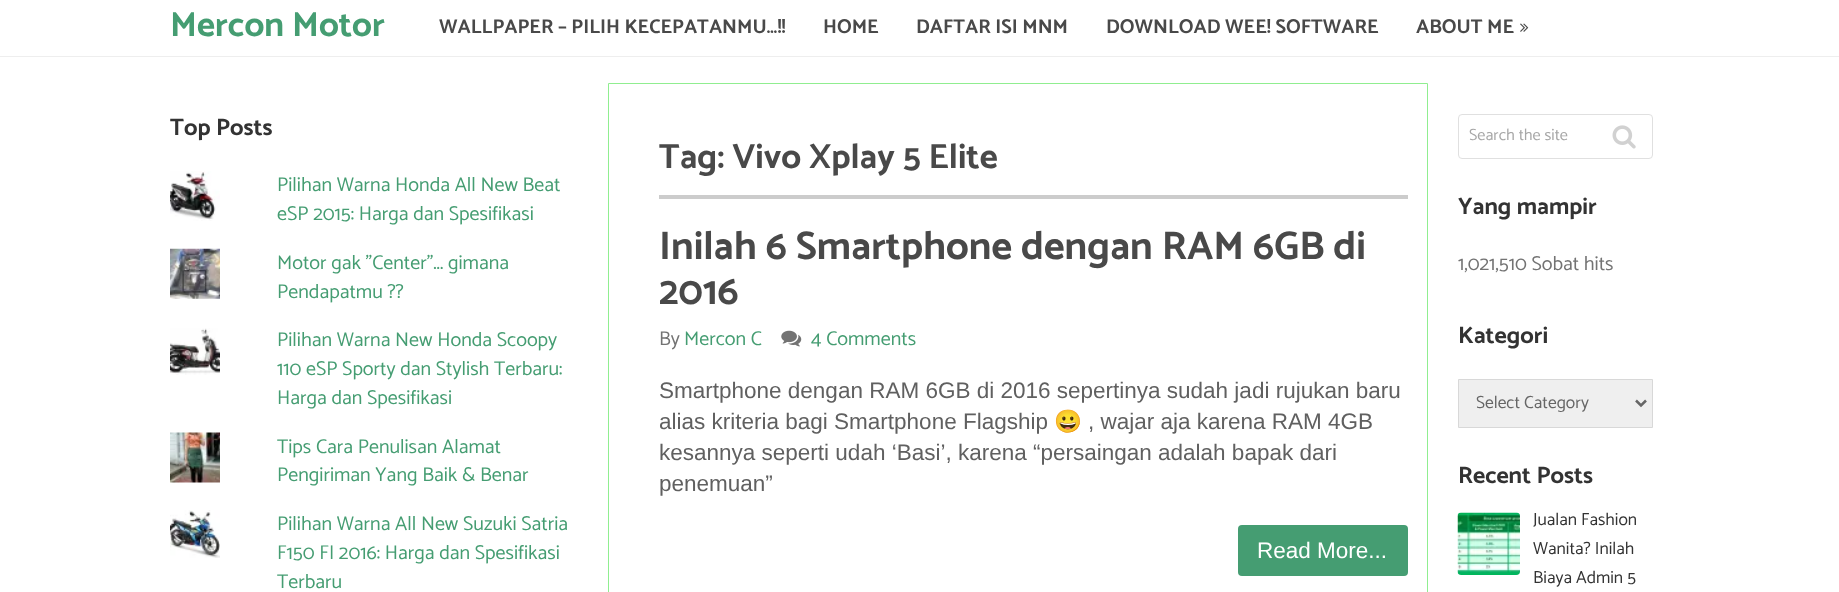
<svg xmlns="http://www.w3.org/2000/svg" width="1839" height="592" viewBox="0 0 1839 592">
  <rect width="100%" height="100%" fill="#fff"/>
  <path d="M0 56h1839v1H0z" fill="#eee"/>
  <image x="1520" y="23" width="9" height="9" href="img/1.png"/>
  <image x="170" y="171" width="50" height="50" href="img/2.png"/>
  <image x="170" y="248" width="50" height="51" href="img/3.png"/>
  <image x="170" y="328" width="50" height="47" href="img/4.png"/>
  <image x="170" y="432" width="50" height="51" href="img/5.png"/>
  <image x="170" y="510" width="50" height="48" href="img/6.png"/>
  <path d="M608.5 83.5h819v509H608.5z" fill="none" stroke="#90ee90"/>
  <path d="M659 195h749v4H659z" fill="#ccc"/>
  <image x="781" y="330" width="21" height="17" href="img/7.png"/>
  <rect x="1238" y="525" width="170" height="51" rx="4" fill="#459d72"/>
  <rect x="1458.5" y="114.5" width="194" height="44" rx="3.5" fill="none" stroke="#e0e0e0"/>
  <image x="1612" y="125" width="24" height="24" href="img/8.png"/>
  <path d="M1458.5 379.5h194v48H1458.5z" fill="#efefef" stroke="#d8d8d8"/>
  <path d="M1636 400.5L1641 405.5L1646 400.5" fill="none" stroke="#666" stroke-width="2.5"/>
  <image x="1457" y="512" width="63" height="63" href="img/9.png"/>
  <text x="170" y="36" font-family="Catamaran" font-size="35" font-weight="bold" fill="#459d72">Mercon Motor</text>
  <g font-family="Catamaran" font-size="20" font-weight="bold" fill="#494949">
    <text x="439" y="33">WALLPAPER – PILIH KECEPATANMU…!!</text>
    <text x="823" y="33">HOME</text>
    <text x="916" y="33">DAFTAR ISI MNM</text>
    <text x="1106" y="33">DOWNLOAD WEE! SOFTWARE</text>
    <text x="1416" y="33">ABOUT ME</text>
  </g>
  <text x="170" y="135" font-family="Catamaran" font-size="23.75" font-weight="bold" fill="#333">Top Posts</text>
  <g font-family="Catamaran" font-size="20" fill="#459d72">
    <text x="277" y="191">Pilihan Warna Honda All New Beat</text>
    <text x="277" y="220">eSP 2015: Harga dan Spesifikasi</text>
    <text x="277" y="269">Motor gak "Center"... gimana</text>
    <text x="277" y="298">Pendapatmu ??</text>
    <text x="277" y="346">Pilihan Warna New Honda Scoopy</text>
    <text x="277" y="375">110 eSP Sporty dan Stylish Terbaru:</text>
    <text x="277" y="404">Harga dan Spesifikasi</text>
    <text x="277" y="453">Tips Cara Penulisan Alamat</text>
    <text x="277" y="481">Pengiriman Yang Baik &amp; Benar</text>
    <text x="277" y="530">Pilihan Warna All New Suzuki Satria</text>
    <text x="277" y="559">F150 FI 2016: Harga dan Spesifikasi</text>
    <text x="277" y="588">Terbaru</text>
  </g>
  <text x="659" y="168" font-family="Catamaran" font-size="35" font-weight="bold" fill="#494949">Tag: Vivo Xplay 5 Elite</text>
  <g font-family="Catamaran" font-size="40" font-weight="bold" fill="#494949">
    <text x="659" y="259">Inilah 6 Smartphone dengan RAM 6GB di</text>
    <text x="659" y="304">2016</text>
  </g>
  <text x="659" y="345" font-family="Catamaran" font-size="20" fill="#737373">By</text>
  <g font-family="Catamaran" font-size="20" fill="#459d72">
    <text x="684" y="345">Mercon C</text>
    <text x="811" y="345">4 Comments</text>
  </g>
  <g font-family="Liberation Sans" font-size="22.5" fill="#606060">
    <text x="659" y="398">Smartphone dengan RAM 6GB di 2016 sepertinya sudah jadi rujukan baru</text>
    <text x="659" y="429">alias kriteria bagi Smartphone Flagship</text>
  </g>
  <text x="1054" y="429" font-family="Noto Color Emoji" font-size="22.5" fill="#606060">😀</text>
  <g font-family="Liberation Sans" font-size="22.5" fill="#606060">
    <text x="1088" y="429">, wajar aja karena RAM 4GB</text>
    <text x="659" y="460">kesannya seperti udah ‘Basi’, karena “persaingan adalah bapak dari</text>
    <text x="659" y="491">penemuan”</text>
  </g>
  <text x="1257" y="558" font-family="Liberation Sans" font-size="22.5" fill="#fff">Read More...</text>
  <text x="1469" y="140" font-family="Catamaran" font-size="16.25" fill="#a7a7a7">Search the site</text>
  <text x="1458" y="214" font-family="Catamaran" font-size="23.75" font-weight="bold" fill="#333">Yang mampir</text>
  <text x="1458" y="270" font-family="Catamaran" font-size="20" fill="#737373">1,021,510 Sobat hits</text>
  <text x="1458" y="343" font-family="Catamaran" font-size="23.75" font-weight="bold" fill="#333">Kategori</text>
  <text x="1476" y="408" font-family="Catamaran" font-size="17.5" fill="#666">Select Category</text>
  <text x="1458" y="483" font-family="Catamaran" font-size="23.75" font-weight="bold" fill="#333">Recent Posts</text>
  <g font-family="Catamaran" font-size="17.5" fill="#333">
    <text x="1533" y="525">Jualan Fashion</text>
    <text x="1533" y="554">Wanita? Inilah</text>
    <text x="1533" y="583">Biaya Admin 5</text>
  </g>
</svg>
